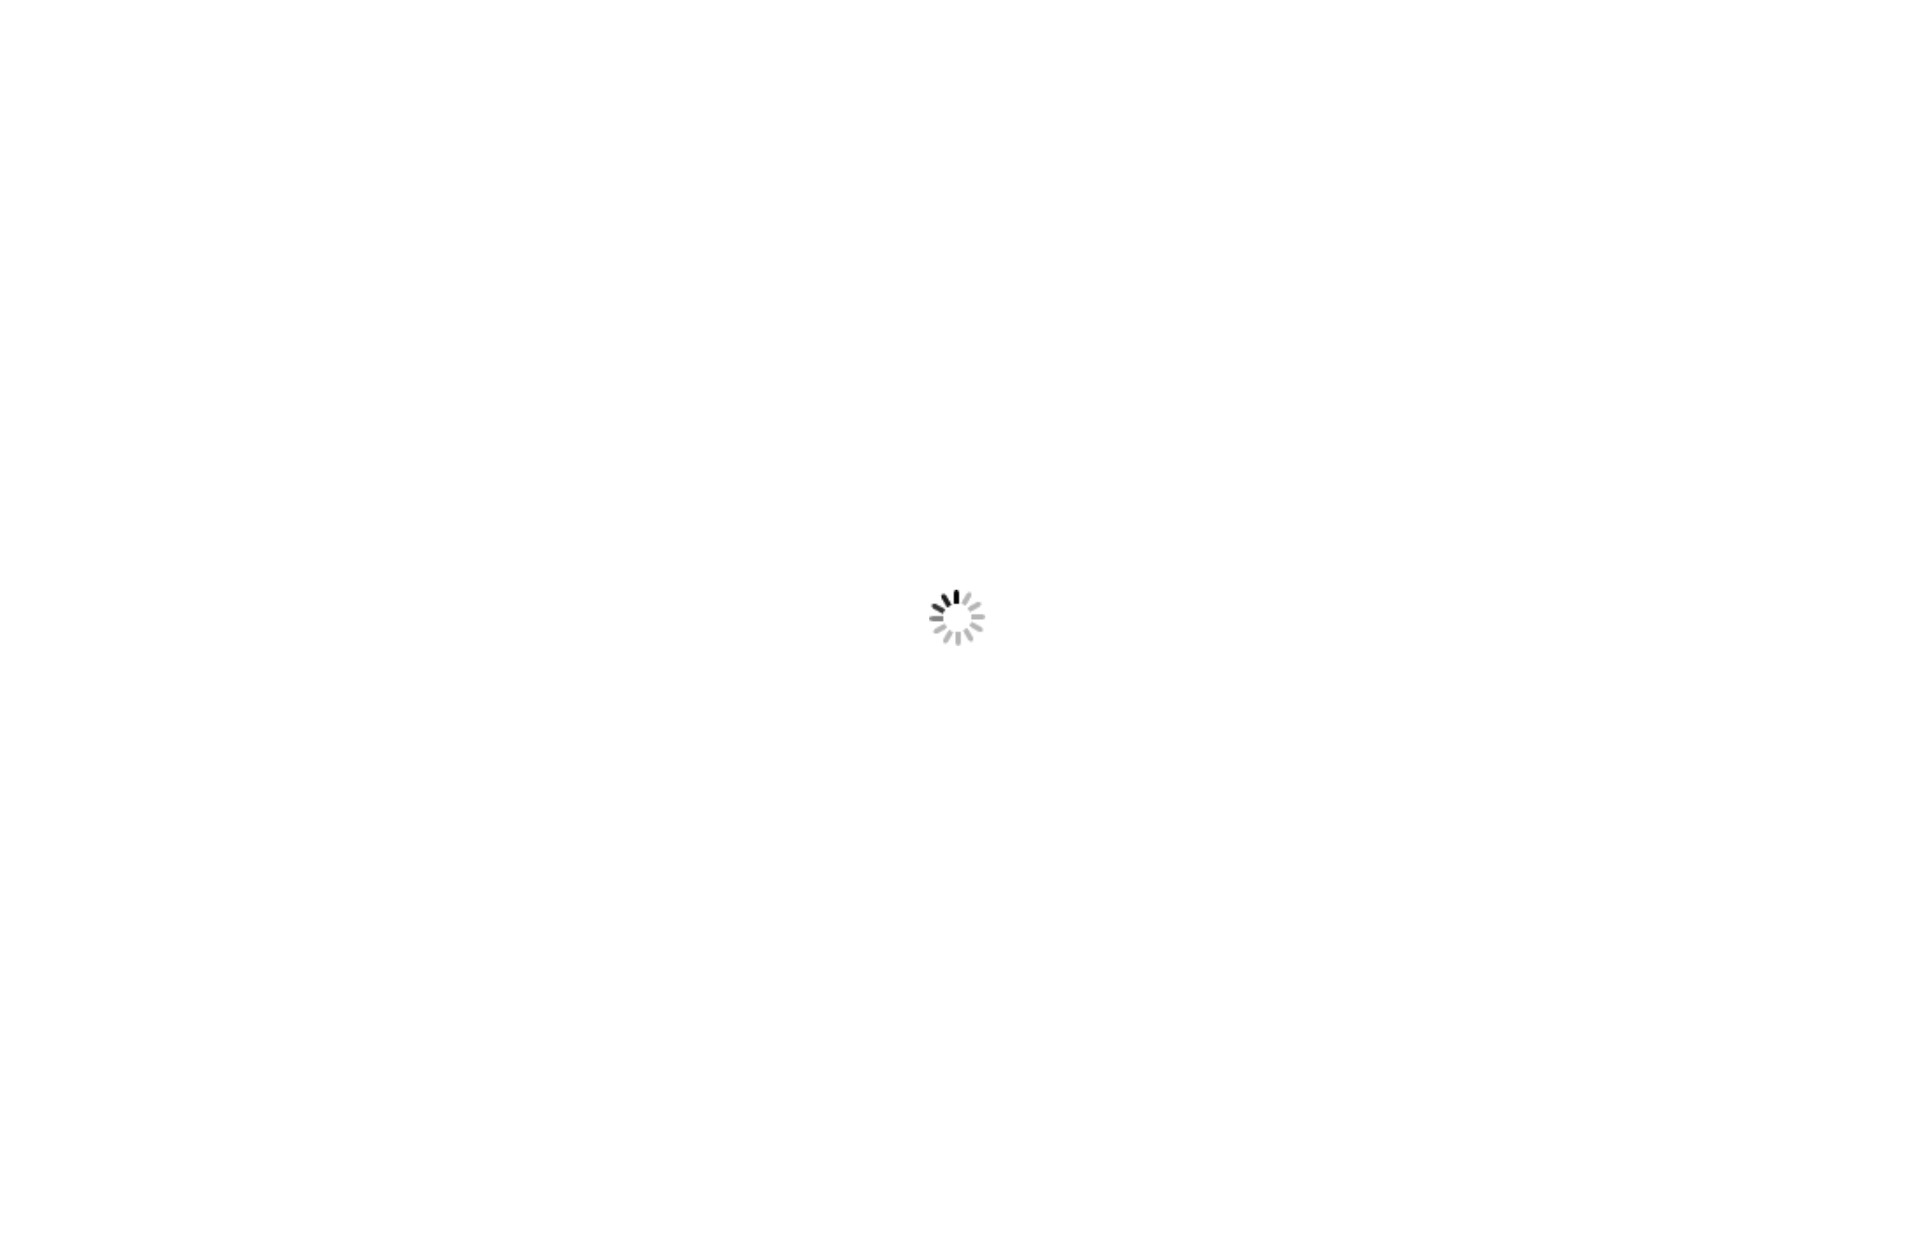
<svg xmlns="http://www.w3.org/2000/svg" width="1913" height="1243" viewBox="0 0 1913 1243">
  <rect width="100%" height="100%" fill="#fff"/>
  <image x="929" y="589" width="57" height="57" href="img/1.png"/>
</svg>
